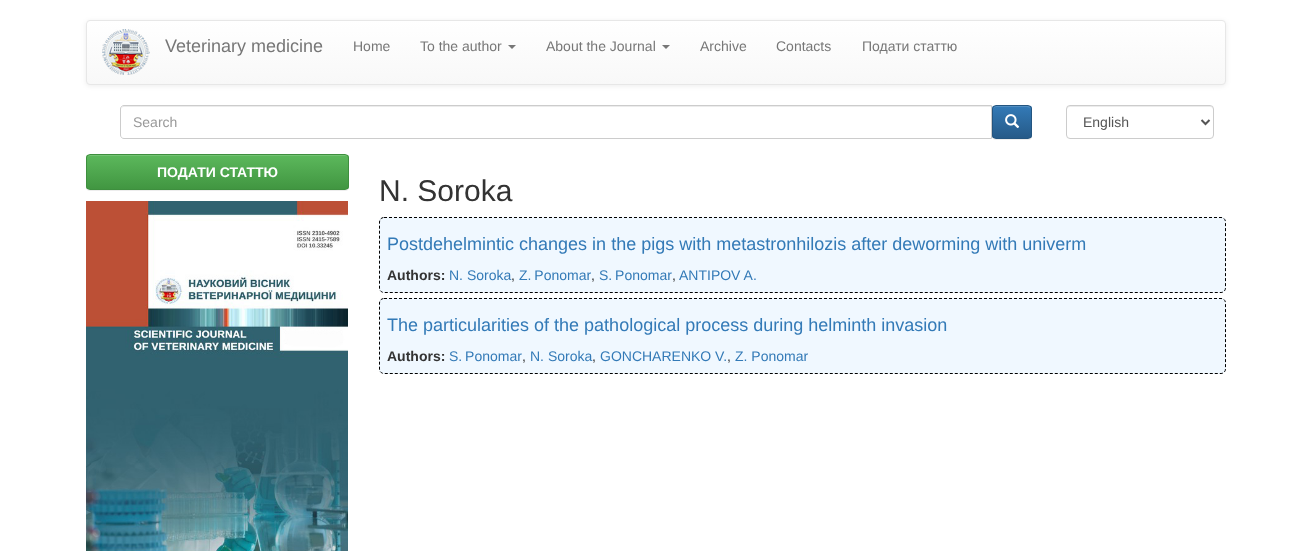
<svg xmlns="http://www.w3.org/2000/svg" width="1312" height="551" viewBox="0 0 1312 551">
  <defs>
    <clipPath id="clip1"><rect x="86" y="20" width="1140" height="65" rx="4"/></clipPath>
    <linearGradient id="g1" gradientUnits="userSpaceOnUse" x1="656" y1="21" x2="656" y2="84"><stop offset="0" stop-color="#fff"/><stop offset="1" stop-color="#f8f8f8"/></linearGradient>
    <clipPath id="clip2"><rect x="992" y="105" width="40" height="34" rx="4"/></clipPath>
    <linearGradient id="g2" gradientUnits="userSpaceOnUse" x1="1012" y1="106" x2="1012" y2="138"><stop offset="0" stop-color="#337ab7"/><stop offset="1" stop-color="#265a88"/></linearGradient>
    <clipPath id="clip3"><rect x="86" y="154" width="263" height="36" rx="4"/></clipPath>
    <linearGradient id="g3" gradientUnits="userSpaceOnUse" x1="218" y1="155" x2="218" y2="189"><stop offset="0" stop-color="#5cb85c"/><stop offset="1" stop-color="#419641"/></linearGradient>
  </defs>
  <rect width="100%" height="100%" fill="#fff"/>
  <rect x="86" y="21" width="1140" height="65" rx="4" fill="#00000012" filter="blur(2.5px)"/>
  <g clip-path="url(#clip1)">
    <path d="M86 21h1140v63H86z" fill="url(#g1)"/>
  </g>
  <rect x="86.5" y="20.5" width="1139" height="64" rx="3.5" fill="none" stroke="#e7e7e7"/>
  <image x="102" y="29" width="48" height="46" href="img/1.png"/>
  <path d="M508 45H516L512 49Z" fill="#777"/>
  <path d="M662 45H670L666 49Z" fill="#777"/>
  <rect x="992" y="106" width="40" height="34" rx="4" fill="#00000012" filter="blur(0.5px)"/>
  <path d="M124 107H991V106H124C122 106 121 108 121 110C121 108 122 107 124 107Z" fill="#ececec"/>
  <path d="M124 105.5H991.5V138.5H124C122 138.5 120.5 137 120.5 135V109C120.5 107 122 105.5 124 105.5Z" fill="none" stroke="#ccc"/>
  <g clip-path="url(#clip2)">
    <path d="M992 106h40v32H992z" fill="url(#g2)"/>
  </g>
  <path d="M996 107H1023C1028.5 107 1030.5 107.5 1031 109.5C1031 104.5 1026.5 106 1022.5 106H1001.5C998 106 993 105 993 109.5C993.5 108 994.5 107 996 107Z" fill="#528ec1"/>
  <rect x="992.5" y="105.5" width="39" height="33" rx="3.5" fill="none" stroke="#245580"/>
  <image x="1005" y="114" width="15" height="14" href="img/2.png"/>
  <path d="M1070 107H1210C1212 107 1213 108 1213 110V109C1213 107 1212 106 1210 106H1070C1068 106 1067 107 1067 109V110C1067 108 1068 107 1070 107Z" fill="#ececec"/>
  <rect x="1066.5" y="105.5" width="147" height="33" rx="3.5" fill="none" stroke="#ccc"/>
  <path d="M1201.5 120L1205.5 124L1209.5 120" fill="none" stroke="#555" stroke-width="2"/>
  <rect x="86" y="155" width="263" height="36" rx="4" fill="#00000012" filter="blur(0.5px)"/>
  <g clip-path="url(#clip3)">
    <path d="M86 155h263v34H86z" fill="url(#g3)"/>
  </g>
  <path d="M90 156H346L348 157V159V158C348 156 347 155 345 155H90C88 155 87 156 87 158V159C87 157 88 156 90 156Z" fill="#74c374"/>
  <rect x="86.5" y="154.5" width="262" height="35" rx="3.5" fill="none" stroke="#3e8f3e"/>
  <image x="86" y="201" width="262" height="350" href="img/3.png"/>
  <rect x="379" y="217" width="847" height="76" rx="5" fill="#f0f8ff"/>
  <path d="M384 217.5H1221C1223.5 217.5 1225.5 219.5 1225.5 222V288C1225.5 290.5 1223.5 292.5 1221 292.5H384C381.5 292.5 379.5 290.5 379.5 288V222C379.5 219.5 381.5 217.5 384 217.5Z" fill="none" stroke="#000" stroke-dasharray="3 2"/>
  <rect x="379" y="298" width="847" height="76" rx="5" fill="#f0f8ff"/>
  <path d="M384 298.5H1221C1223.5 298.5 1225.5 300.5 1225.5 303V369C1225.5 371.5 1223.5 373.5 1221 373.5H384C381.5 373.5 379.5 371.5 379.5 369V303C379.5 300.5 381.5 298.5 384 298.5Z" fill="none" stroke="#000" stroke-dasharray="3 2"/>
  <text x="165" y="52" font-family="Liberation Sans" font-size="18" fill="#777">Veterinary medicine</text>
  <g font-family="Liberation Sans" font-size="14" fill="#777">
    <text x="353" y="51">Home</text>
    <text x="420" y="51">To the author</text>
    <text x="546" y="51">About the Journal</text>
    <text x="700" y="51">Archive</text>
    <text x="776" y="51">Contacts</text>
    <text x="862" y="51">Подати статтю</text>
  </g>
  <text x="133" y="127" font-family="Liberation Sans" font-size="14" fill="#999">Search</text>
  <text x="1083" y="127" font-family="Liberation Sans" font-size="14" fill="#555">English</text>
  <text x="157" y="177" font-family="Liberation Sans" font-size="14" font-weight="bold" fill="#fff">ПОДАТИ СТАТТЮ</text>
  <text x="379" y="201" font-family="Liberation Sans" font-size="30" fill="#333">N. Soroka</text>
  <text x="387" y="250" font-family="Liberation Sans" font-size="18" fill="#337ab7">Postdehelmintic changes in the pigs with metastronhilozis after deworming with univerm</text>
  <text x="387" y="280" font-family="Liberation Sans" font-size="14" font-weight="bold" fill="#333">Authors:</text>
  <text x="449" y="280" font-family="Liberation Sans" font-size="14" fill="#337ab7">N. Soroka</text>
  <text x="511" y="280" font-family="Liberation Sans" font-size="14" fill="#333">,</text>
  <text x="519" y="280" word-spacing="-1" font-family="Liberation Sans" font-size="14" fill="#337ab7">Z. Ponomar</text>
  <text x="591" y="280" font-family="Liberation Sans" font-size="14" fill="#333">,</text>
  <text x="599" y="280" word-spacing="-1" font-family="Liberation Sans" font-size="14" fill="#337ab7">S. Ponomar</text>
  <text x="672" y="280" font-family="Liberation Sans" font-size="14" fill="#333">,</text>
  <text x="679" y="280" font-family="Liberation Sans" font-size="14" fill="#337ab7">ANTIPOV A.</text>
  <text x="387" y="331" font-family="Liberation Sans" font-size="18" fill="#337ab7">The particularities of the pathological process during helminth invasion</text>
  <text x="387" y="361" font-family="Liberation Sans" font-size="14" font-weight="bold" fill="#333">Authors:</text>
  <text x="449" y="361" word-spacing="-1" font-family="Liberation Sans" font-size="14" fill="#337ab7">S. Ponomar</text>
  <text x="522" y="361" font-family="Liberation Sans" font-size="14" fill="#333">,</text>
  <text x="530" y="361" font-family="Liberation Sans" font-size="14" fill="#337ab7">N. Soroka</text>
  <text x="592" y="361" font-family="Liberation Sans" font-size="14" fill="#333">,</text>
  <text x="600" y="361" font-family="Liberation Sans" font-size="14" fill="#337ab7">GONCHARENKO V.</text>
  <text x="727" y="361" font-family="Liberation Sans" font-size="14" fill="#333">,</text>
  <text x="735" y="361" font-family="Liberation Sans" font-size="14" fill="#337ab7">Z. Ponomar</text>
</svg>
